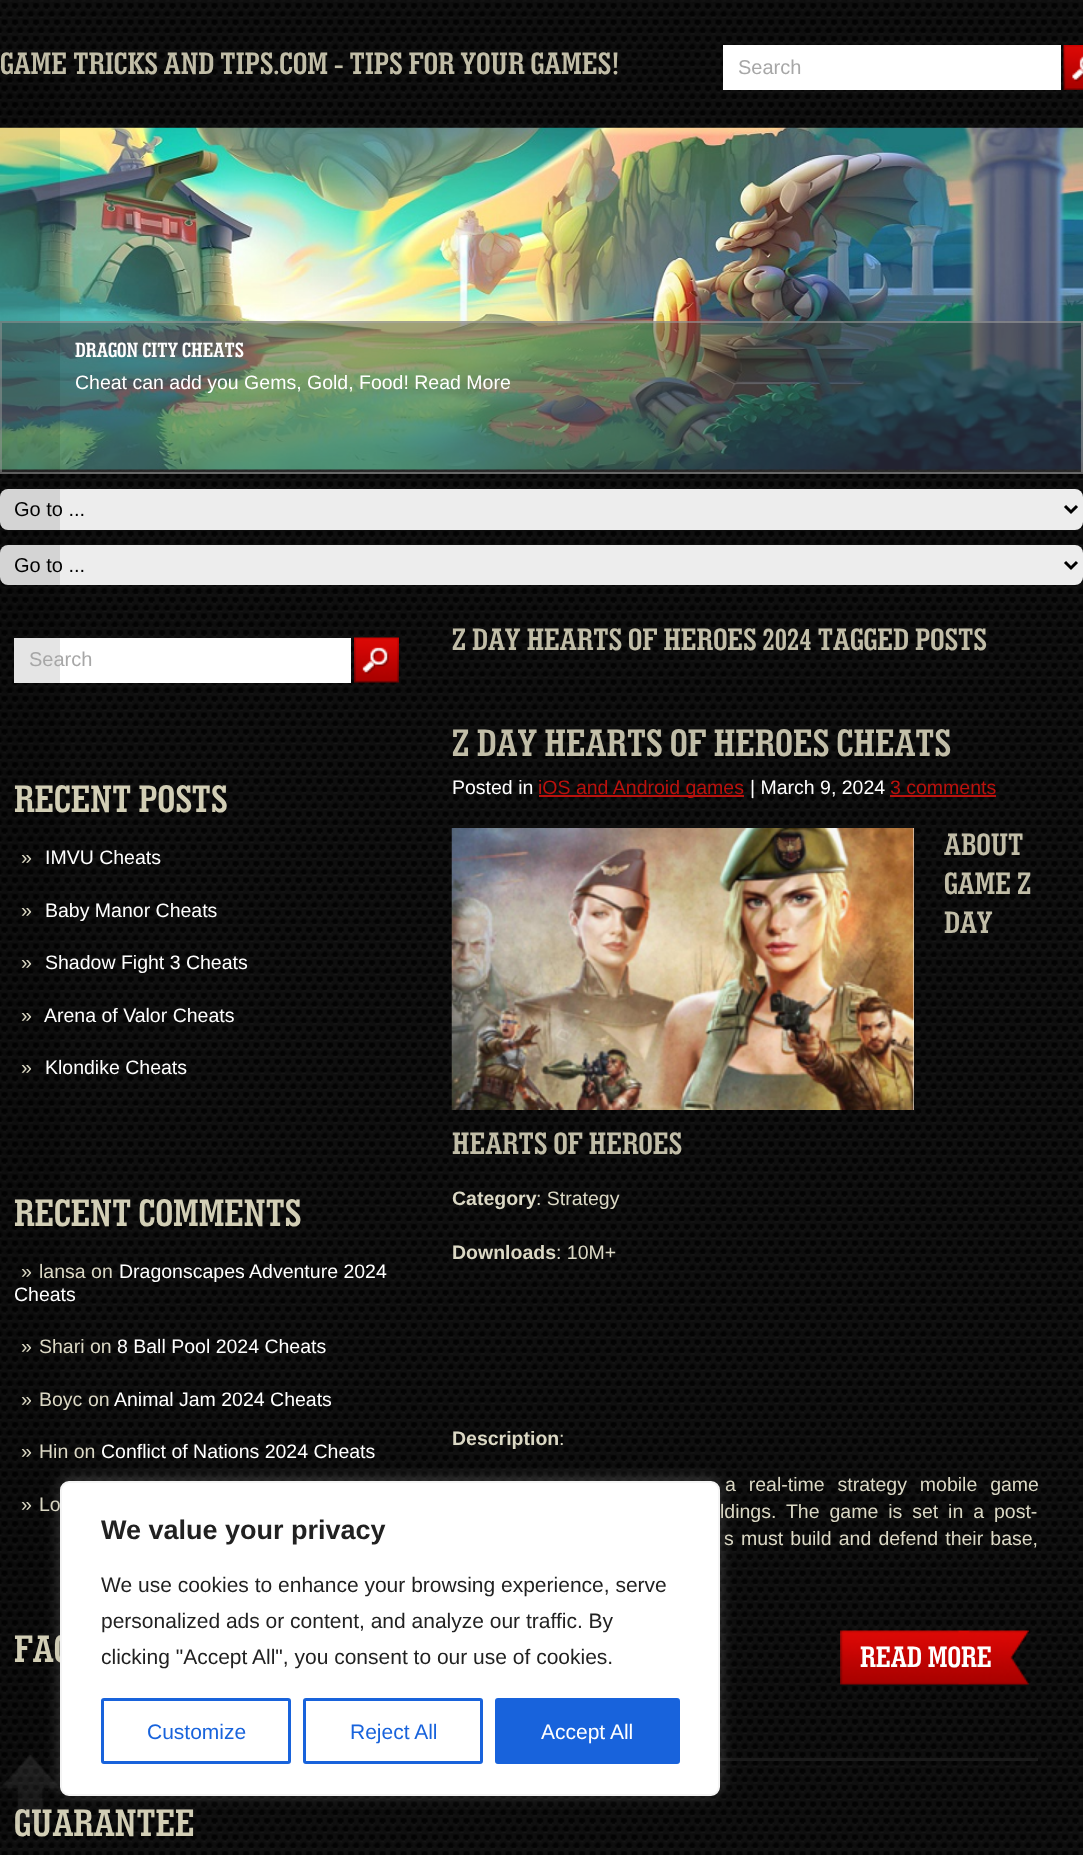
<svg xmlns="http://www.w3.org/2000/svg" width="1083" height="1855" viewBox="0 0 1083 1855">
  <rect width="100%" height="100%" fill="#fff"/>
  <image x="0" y="0" width="1083" height="1855" href="img/1.png"/>
  <path d="M723 45h338v45H723z" fill="#fff"/>
  <image x="1063" y="45" width="20" height="45" href="img/2.png"/>
  <image x="0" y="127" width="1083" height="343" href="img/3.png"/>
  <path d="M0 321h1083v153H0z" fill="#44444480"/>
  <path d="M1 322h1081v151H1z" fill="none" stroke="#aaaaaa80" stroke-width="2"/>
  <rect y="489" width="1083" height="41" rx="8" fill="#ededed"/>
  <path d="M1065 506L1071 512L1077 506" fill="none" stroke="#000" stroke-width="3"/>
  <rect y="545" width="1083" height="40" rx="8" fill="#ededed"/>
  <path d="M1065 562L1071 568L1077 562" fill="none" stroke="#000" stroke-width="3"/>
  <path d="M14 638h337v45H14z" fill="#fff"/>
  <image x="354" y="637" width="45" height="46" href="img/4.png"/>
  <path d="M720 1758h318v3H720z" fill="#1b1b1b"/>
  <path d="M539 795h205v2H539z" fill="#ba110d"/>
  <path d="M890 795h106v2H890z" fill="#ba110d"/>
  <path d="M913 828h1v282H913z" fill="#fff"/>
  <image x="451" y="828" width="463" height="282" href="img/5.png"/>
  <image x="840" y="1630" width="189" height="55" href="img/6.png"/>
  <path d="M0 52h60v1785H0z" fill="#0000001a"/>
  <text x="0" y="74" font-family="'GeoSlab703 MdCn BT'" font-size="31.5" font-weight="bold" fill="#c1bda7">GAME TRICKS AND TIPS.COM - TIPS FOR YOUR GAMES!</text>
  <text x="738" y="74" font-family="Liberation Sans" font-size="20" fill="#a7a7a7">Search</text>
  <text x="75" y="357" font-family="'GeoSlab703 MdCn BT'" font-size="21" font-weight="bold" fill="#fff">DRAGON CITY CHEATS</text>
  <text x="75" y="389" font-family="Liberation Sans" font-size="19.5" fill="#fff">Cheat can add you Gems, Gold, Food! Read More</text>
  <g font-family="Liberation Sans" font-size="20" fill="#000">
    <text x="14" y="516">Go to ...</text>
    <text x="14" y="572">Go to ...</text>
  </g>
  <text x="29" y="666" font-family="Liberation Sans" font-size="20" fill="#a7a7a7">Search</text>
  <text x="14" y="812" font-family="'GeoSlab703 MdCn BT'" font-size="39" font-weight="bold" fill="#d2ceb5">RECENT POSTS</text>
  <text x="21" y="864" font-family="Liberation Sans" font-size="19.5" fill="#dbd8c4">»</text>
  <text x="45" y="864" font-family="Liberation Sans" font-size="19.5" fill="#fff">IMVU Cheats</text>
  <text x="21" y="917" font-family="Liberation Sans" font-size="19.5" fill="#dbd8c4">»</text>
  <text x="45" y="917" font-family="Liberation Sans" font-size="19.5" fill="#fff">Baby Manor Cheats</text>
  <text x="21" y="969" font-family="Liberation Sans" font-size="19.5" fill="#dbd8c4">»</text>
  <text x="45" y="969" font-family="Liberation Sans" font-size="19.5" fill="#fff">Shadow Fight 3 Cheats</text>
  <text x="21" y="1022" font-family="Liberation Sans" font-size="19.5" fill="#dbd8c4">»</text>
  <text x="44" y="1022" font-family="Liberation Sans" font-size="19.5" fill="#fff">Arena of Valor Cheats</text>
  <text x="21" y="1074" font-family="Liberation Sans" font-size="19.5" fill="#dbd8c4">»</text>
  <text x="45" y="1074" font-family="Liberation Sans" font-size="19.5" fill="#fff">Klondike Cheats</text>
  <text x="14" y="1226" font-family="'GeoSlab703 MdCn BT'" font-size="39" font-weight="bold" fill="#d2ceb5">RECENT COMMENTS</text>
  <g font-family="Liberation Sans" font-size="19.5" fill="#dbd8c4">
    <text x="21" y="1278">»</text>
    <text x="39" y="1278">lansa on</text>
  </g>
  <g font-family="Liberation Sans" font-size="19.5" fill="#fff">
    <text x="119" y="1278">Dragonscapes Adventure 2024</text>
    <text x="14" y="1301">Cheats</text>
  </g>
  <g font-family="Liberation Sans" font-size="19.5" fill="#dbd8c4">
    <text x="21" y="1353">»</text>
    <text x="39" y="1353">Shari on</text>
  </g>
  <text x="117" y="1353" font-family="Liberation Sans" font-size="19.5" fill="#fff">8 Ball Pool 2024 Cheats</text>
  <g font-family="Liberation Sans" font-size="19.5" fill="#dbd8c4">
    <text x="21" y="1406">»</text>
    <text x="39" y="1406">Boyc</text>
    <text x="88" y="1406">on</text>
  </g>
  <text x="114" y="1406" font-family="Liberation Sans" font-size="19.5" fill="#fff">Animal Jam 2024 Cheats</text>
  <g font-family="Liberation Sans" font-size="19.5" fill="#dbd8c4">
    <text x="21" y="1458">»</text>
    <text x="39" y="1458">Hin on</text>
  </g>
  <text x="101" y="1458" font-family="Liberation Sans" font-size="19.5" fill="#fff">Conflict of Nations 2024 Cheats</text>
  <g font-family="Liberation Sans" font-size="19.5" fill="#dbd8c4">
    <text x="21" y="1511">»</text>
    <text x="39" y="1511">Lo</text>
  </g>
  <g font-family="'GeoSlab703 MdCn BT'" font-size="39" font-weight="bold" fill="#d2ceb5">
    <text x="14" y="1662">FAC</text>
    <text x="14" y="1836">GUARANTEE</text>
  </g>
  <text x="452" y="650" font-family="'GeoSlab703 MdCn BT'" font-size="31.5" font-weight="bold" fill="#c1bda7">Z DAY HEARTS OF HEROES 2024 TAGGED POSTS</text>
  <text x="452" y="756" font-family="'GeoSlab703 MdCn BT'" font-size="39" font-weight="bold" fill="#c1bda7">Z DAY HEARTS OF HEROES CHEATS</text>
  <text x="452" y="794" font-family="Liberation Sans" font-size="19.5" fill="#fff">Posted in</text>
  <text x="538" y="794" font-family="Liberation Sans" font-size="19.5" fill="#ba110d">iOS and Android games</text>
  <text x="750" y="794" font-family="Liberation Sans" font-size="19.5" fill="#fff">| March 9, 2024</text>
  <text x="890" y="794" font-family="Liberation Sans" font-size="19.5" fill="#ba110d">3 comments</text>
  <g font-family="'GeoSlab703 MdCn BT'" font-size="31.5" font-weight="bold" fill="#c1bda7">
    <text x="944" y="855">ABOUT</text>
    <text x="944" y="894">GAME Z</text>
    <text x="944" y="933">DAY</text>
    <text x="452" y="1154">HEARTS OF HEROES</text>
  </g>
  <text x="452" y="1205" font-family="Liberation Sans" font-size="19.5" font-weight="bold" fill="#dbd8c4">Category</text>
  <text x="536" y="1205" font-family="Liberation Sans" font-size="19.5" fill="#dbd8c4">: Strategy</text>
  <text x="452" y="1259" font-family="Liberation Sans" font-size="19.5" font-weight="bold" fill="#dbd8c4">Downloads</text>
  <text x="556" y="1259" font-family="Liberation Sans" font-size="19.5" fill="#dbd8c4">: 10M+</text>
  <text x="452" y="1445" font-family="Liberation Sans" font-size="19.5" font-weight="bold" fill="#dbd8c4">Description</text>
  <g font-family="Liberation Sans" font-size="19.5" fill="#dbd8c4">
    <text x="559" y="1445">:</text>
    <text x="725" y="1491" word-spacing="7.5">a real-time strategy mobile game</text>
    <text x="720" y="1518" word-spacing="4.5">ldings. The game is set in a post-</text>
    <text x="724" y="1545" word-spacing="1.75">s must build and defend their base,</text>
  </g>
  <text x="860" y="1667" font-family="'GeoSlab703 MdCn BT'" font-size="30" font-weight="bold" fill="#fff">READ MORE</text>
  <image x="0" y="1755" width="60" height="70" href="img/7.png"/>
  <rect x="60" y="1479" width="660" height="315" rx="9" fill="#acabab4d" filter="blur(7.5px)"/>
  <rect x="61" y="1482" width="658" height="313" rx="8" fill="#fff" stroke="#f4f4f4" stroke-width="2"/>
  <text x="101" y="1539" font-family="Liberation Sans" font-size="27" font-weight="bold" fill="#212121">We value your privacy</text>
  <g font-family="Liberation Sans" font-size="21" fill="#212121">
    <text x="101" y="1592">We use cookies to enhance your browsing experience, serve</text>
    <text x="101" y="1628">personalized ads or content, and analyze our traffic. By</text>
    <text x="101" y="1664">clicking "Accept All", you consent to our use of cookies.</text>
  </g>
  <rect x="102.5" y="1699.5" width="187" height="63" rx="1.5" fill="none" stroke="#1863dc" stroke-width="3"/>
  <text x="147" y="1739" font-family="Liberation Sans" font-size="21" fill="#1863dc">Customize</text>
  <rect x="304.5" y="1699.5" width="177" height="63" rx="1.5" fill="none" stroke="#1863dc" stroke-width="3"/>
  <text x="350" y="1739" font-family="Liberation Sans" font-size="21" fill="#1863dc">Reject All</text>
  <rect x="496.5" y="1699.5" width="182" height="63" rx="1.5" fill="#1863dc" stroke="#1863dc" stroke-width="3"/>
  <text x="541" y="1739" font-family="Liberation Sans" font-size="21" fill="#fff">Accept All</text>
</svg>
